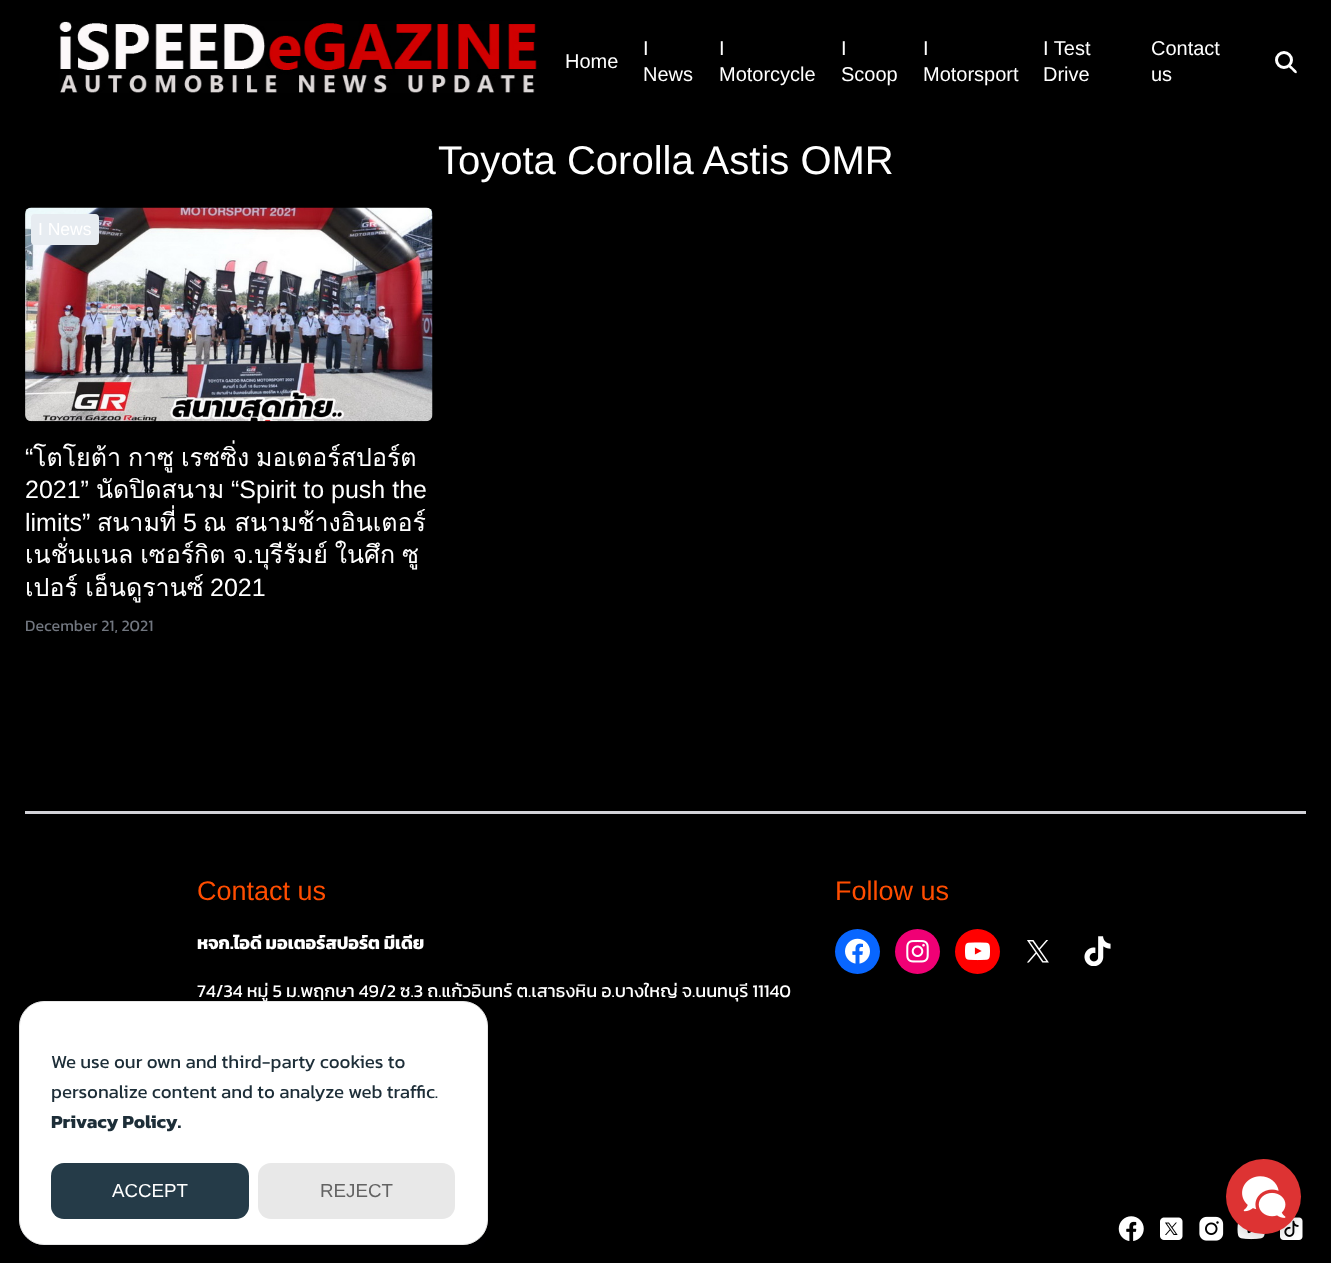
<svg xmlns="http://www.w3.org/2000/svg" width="1331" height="1263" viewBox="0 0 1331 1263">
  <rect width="100%" height="100%" fill="#000"/>
  <image x="59" y="21" width="478" height="72" href="img/1.png"/>
  <path d="M1289 65.5C1290.5 64 1293 67.5 1293.5 68C1294.5 69 1298 71.5 1296.5 73C1295 74 1292.5 70.5 1292 70C1291 69 1287.5 67 1289 65.5Z" fill="#fff"/>
  <circle cx="1284" cy="60" r="7.5" fill="none" stroke="#fff" stroke-width="3"/>
  <image x="25" y="207" width="408" height="215" href="img/2.png"/>
  <rect x="31" y="214" width="68" height="31" rx="4" fill="#e7ecf1"/>
  <path d="M25 811h1281v3H25z" fill="#d2d2d7"/>
  <circle cx="857.5" cy="951.5" r="22.5" fill="#0866ff"/>
  <image x="845" y="938" width="25" height="26" href="img/3.png"/>
  <circle cx="917.5" cy="951.5" r="22.5" fill="#f00075"/>
  <image x="906" y="940" width="23" height="23" href="img/4.png"/>
  <circle cx="977.5" cy="951.5" r="22.5" fill="#f00"/>
  <image x="965" y="942" width="25" height="19" href="img/5.png"/>
  <image x="1027" y="940" width="22" height="23" href="img/6.png"/>
  <image x="1084" y="936" width="27" height="30" href="img/7.png"/>
  <image x="1199" y="1216" width="25" height="25" href="img/11.png"/>
  <image x="1237" y="1223" width="28" height="17" href="img/12.png"/>
  <image x="1280" y="1217" width="23" height="23" href="img/13.png"/>
  <rect x="1226" y="1164" width="75" height="75" rx="37.5" fill="#00000026" filter="blur(7.5px)"/>
  <circle cx="1263.5" cy="1196.5" r="37.5" fill="#d33"/>
  <image x="1242" y="1176" width="44" height="42" href="img/8.png"/>
  <image x="1118" y="1216" width="26" height="25" href="img/9.png"/>
  <image x="1160" y="1217" width="23" height="23" href="img/10.png"/>
  <rect x="19" y="1014" width="469" height="244" rx="25" fill="#02020333" filter="blur(19px)"/>
  <rect x="19.5" y="1001.5" width="468" height="243" rx="24.5" fill="#fff" stroke="#e6e6e6"/>
  <rect x="51" y="1163" width="198" height="56" rx="13" fill="#253b48"/>
  <rect x="258" y="1163" width="197" height="56" rx="13" fill="#e8e8e8"/>
  <g font-family="Liberation Sans" font-size="20" fill="#fff">
    <text x="565" y="68">Home</text>
    <text x="643" y="55">I</text>
    <text x="643" y="81">News</text>
    <text x="719" y="55">I</text>
    <text x="719" y="81">Motorcycle</text>
    <text x="841" y="55">I</text>
    <text x="841" y="81">Scoop</text>
    <text x="923" y="55">I</text>
    <text x="923" y="81">Motorsport</text>
    <text x="1043" y="55">I Test</text>
    <text x="1043" y="81">Drive</text>
    <text x="1151" y="55">Contact</text>
    <text x="1151" y="81">us</text>
  </g>
  <text x="438" y="174" font-family="Liberation Sans" font-size="40" fill="#fff">Toyota Corolla Astis OMR</text>
  <text x="38" y="235" font-family="Liberation Sans" font-size="17.5" fill="#fff">I News</text>
  <text x="25" y="466" font-family="Liberation Sans" font-size="25" fill="#fff">“</text>
  <text x="33" y="466" word-spacing="-1.5" font-family="Loma" font-size="25" fill="#fff">โตโยต้า กาซู เรซซิ่ง มอเตอร์สปอร์ต</text>
  <text x="25" y="498" font-family="Liberation Sans" font-size="25" fill="#fff">2021”</text>
  <text x="96" y="498" font-family="Loma" font-size="25" fill="#fff">นัดปิดสนาม</text>
  <g font-family="Liberation Sans" font-size="25" fill="#fff">
    <text x="231" y="498">“Spirit to push the</text>
    <text x="25" y="531">limits”</text>
  </g>
  <text x="97" y="531" font-family="Loma" font-size="25" fill="#fff">สนามที่</text>
  <text x="183" y="531" font-family="Liberation Sans" font-size="25" fill="#fff">5</text>
  <g font-family="Loma" font-size="25" fill="#fff">
    <text x="203" y="531">ณ สนามช้างอินเตอร์</text>
    <text x="25" y="563" word-spacing="-1.5">เนชั่นแนล เซอร์กิต จ</text>
  </g>
  <text x="247" y="563" font-family="Liberation Sans" font-size="25" fill="#fff">.</text>
  <g font-family="Loma" font-size="25" fill="#fff">
    <text x="254" y="563" word-spacing="-1.5">บุรีรัมย์ ในศึก ซู</text>
    <text x="25" y="596" word-spacing="-1">เปอร์ เอ็นดูรานซ์</text>
  </g>
  <text x="210" y="596" font-family="Liberation Sans" font-size="25" fill="#fff">2021</text>
  <text x="25" y="631" font-family="Kanit" font-size="16" fill="#71767f">December 21, 2021</text>
  <text x="197" y="900" font-family="Liberation Sans" font-size="27" fill="#ff4d00">Contact us</text>
  <text x="197" y="949" font-family="Kanit" font-size="18" font-weight="bold" fill="#fff">หจก.ไอดี มอเตอร์สปอร์ต มีเดีย</text>
  <text x="197" y="997" font-family="Kanit" font-size="18" fill="#fff">74/34 หมู่ 5 ม.พฤกษา 49/2 ซ.3 ถ.แก้วอินทร์ ต.เสาธงหิน อ.บางใหญ่ จ.นนทบุรี 11140</text>
  <text x="835" y="900" font-family="Liberation Sans" font-size="27" fill="#ff4d00">Follow us</text>
  <g font-family="Kanit" font-size="18.75" fill="#1d2e38">
    <text x="51" y="1068">We use our own and third-party cookies to</text>
    <text x="51" y="1098">personalize content and to analyze web traffic.</text>
  </g>
  <text x="51" y="1128" font-family="Kanit" font-size="18.75" font-weight="bold" fill="#1d2e38">Privacy Policy.</text>
  <text x="112" y="1197" font-family="Liberation Sans" font-size="18.75" fill="#fff">ACCEPT</text>
  <text x="320" y="1197" font-family="Liberation Sans" font-size="18.75" fill="#636363">REJECT</text>
</svg>
